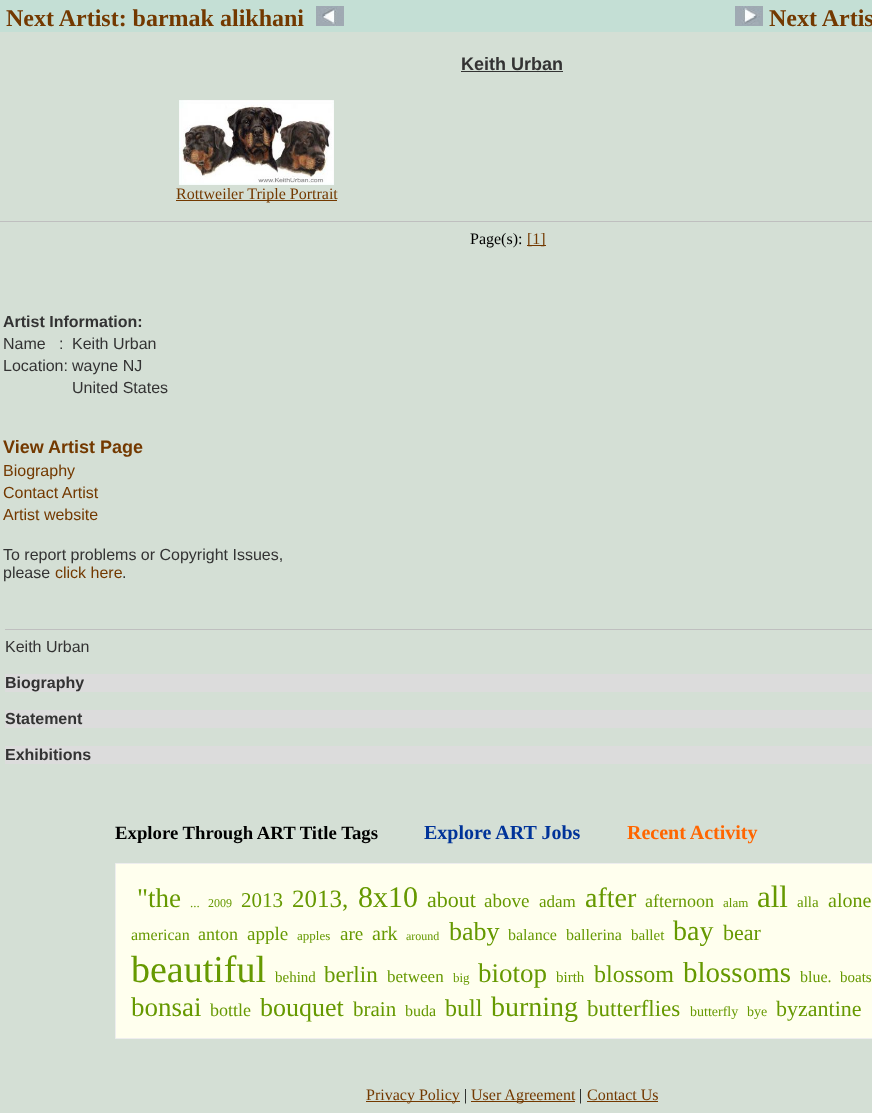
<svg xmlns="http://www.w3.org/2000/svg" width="872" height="1113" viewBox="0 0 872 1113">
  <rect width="100%" height="100%" fill="#c4dfd5"/>
  <image x="316" y="6" width="28" height="20" href="img/1.png"/>
  <image x="735" y="6" width="28" height="20" href="img/2.png"/>
  <path d="M0 32h872v1081H0z" fill="#d4dfd5"/>
  <path d="M461 71h102v1H461z" fill="#333"/>
  <image x="179" y="100" width="155" height="85" href="img/3.png"/>
  <path d="M176 200h161v1H176z" fill="#733900"/>
  <path d="M0 221h872v1H0z" fill="#bfbfbf"/>
  <path d="M527 245h19v1H527z" fill="#733900"/>
  <path d="M5 629h867v1H5z" fill="#bfbfbf"/>
  <path d="M5 674h867v18H5z" fill="#dcdcdc"/>
  <path d="M5 710h867v18H5z" fill="#dcdcdc"/>
  <path d="M5 746h867v18H5z" fill="#dcdcdc"/>
  <path d="M115.5 863.5h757v175H115.5z" fill="#ffe" stroke="#eee"/>
  <path d="M366 1101h94v1H366z" fill="#733900"/>
  <path d="M471 1101h104v1H471z" fill="#733900"/>
  <path d="M587 1101h71v1H587z" fill="#733900"/>
  <g font-family="Liberation Serif" font-size="24" font-weight="bold" fill="#733900">
    <text x="6" y="26">Next Artist: barmak alikhani</text>
    <text x="769" y="26">Next Artis</text>
  </g>
  <text x="461" y="70" font-family="Liberation Sans" font-size="18" font-weight="bold" fill="#333">Keith Urban</text>
  <text x="176" y="199" font-family="Liberation Serif" font-size="16" fill="#733900">Rottweiler Triple Portrait</text>
  <text x="470" y="244" font-family="Liberation Serif" font-size="16" fill="#000">Page(s):</text>
  <text x="527" y="244" font-family="Liberation Serif" font-size="16" fill="#733900">[1]</text>
  <text x="3" y="327" font-family="Liberation Sans" font-size="16" font-weight="bold" fill="#333">Artist Information:</text>
  <g font-family="Liberation Sans" font-size="16" fill="#333">
    <text x="3" y="349" xml:space="preserve">Name   :</text>
    <text x="72" y="349">Keith Urban</text>
    <text x="3" y="371">Location:</text>
    <text x="72" y="371">wayne NJ</text>
    <text x="72" y="393">United States</text>
  </g>
  <text x="3" y="453" font-family="Liberation Sans" font-size="18" font-weight="bold" fill="#733900">View Artist Page</text>
  <g font-family="Liberation Sans" font-size="16" fill="#733900">
    <text x="3" y="476">Biography</text>
    <text x="3" y="498">Contact Artist</text>
    <text x="3" y="520">Artist website</text>
  </g>
  <g font-family="Liberation Sans" font-size="16" fill="#333">
    <text x="3" y="560">To report problems or Copyright Issues,</text>
    <text x="3" y="578">please</text>
  </g>
  <text x="55" y="578" font-family="Liberation Sans" font-size="16" fill="#733900">click here</text>
  <g font-family="Liberation Sans" font-size="16" fill="#333">
    <text x="122" y="578">.</text>
    <text x="5" y="652">Keith Urban</text>
  </g>
  <g font-family="Liberation Sans" font-size="16" font-weight="bold" fill="#333">
    <text x="5" y="688">Biography</text>
    <text x="5" y="724">Statement</text>
    <text x="5" y="760">Exhibitions</text>
  </g>
  <text x="115" y="839" font-family="Liberation Serif" font-size="18.75" font-weight="bold" fill="#000">Explore Through ART Title Tags</text>
  <text x="424" y="839" font-family="Liberation Serif" font-size="20" font-weight="bold" fill="#039">Explore ART Jobs</text>
  <text x="627" y="839" font-family="Liberation Serif" font-size="20" font-weight="bold" fill="#f60">Recent Activity</text>
  <text x="137" y="907" font-family="Liberation Serif" font-size="27" fill="#690">"the</text>
  <text x="190" y="907" font-family="Liberation Serif" font-size="13" fill="#690">...</text>
  <text x="208" y="907" font-family="Liberation Serif" font-size="12" fill="#690">2009</text>
  <text x="241" y="907" font-family="Liberation Serif" font-size="21" fill="#690">2013</text>
  <text x="292" y="907" font-family="Liberation Serif" font-size="25" fill="#690">2013,</text>
  <text x="358" y="907" font-family="Liberation Serif" font-size="30" fill="#690">8x10</text>
  <text x="427" y="907" font-family="Liberation Serif" font-size="22" fill="#690">about</text>
  <text x="484" y="907" font-family="Liberation Serif" font-size="19" fill="#690">above</text>
  <text x="539" y="907" font-family="Liberation Serif" font-size="17" fill="#690">adam</text>
  <text x="585" y="907" font-family="Liberation Serif" font-size="28" fill="#690">after</text>
  <text x="645" y="907" font-family="Liberation Serif" font-size="18" fill="#690">afternoon</text>
  <text x="723" y="907" font-family="Liberation Serif" font-size="13" fill="#690">alam</text>
  <text x="757" y="907" font-family="Liberation Serif" font-size="31" fill="#690">all</text>
  <text x="797" y="907" font-family="Liberation Serif" font-size="15" fill="#690">alla</text>
  <text x="828" y="907" font-family="Liberation Serif" font-size="20" fill="#690">alone</text>
  <text x="131" y="940" font-family="Liberation Serif" font-size="16" fill="#690">american</text>
  <text x="198" y="940" font-family="Liberation Serif" font-size="18" fill="#690">anton</text>
  <text x="247" y="940" font-family="Liberation Serif" font-size="19" fill="#690">apple</text>
  <text x="297" y="940" font-family="Liberation Serif" font-size="13" fill="#690">apples</text>
  <text x="340" y="940" font-family="Liberation Serif" font-size="19" fill="#690">are</text>
  <text x="372" y="940" font-family="Liberation Serif" font-size="20" fill="#690">ark</text>
  <text x="406" y="940" font-family="Liberation Serif" font-size="12" fill="#690">around</text>
  <text x="449" y="940" font-family="Liberation Serif" font-size="26" fill="#690">baby</text>
  <g font-family="Liberation Serif" font-size="16" fill="#690">
    <text x="508" y="940">balance</text>
    <text x="566" y="940">ballerina</text>
  </g>
  <text x="631" y="940" font-family="Liberation Serif" font-size="15" fill="#690">ballet</text>
  <text x="673" y="940" font-family="Liberation Serif" font-size="28" fill="#690">bay</text>
  <text x="723" y="940" font-family="Liberation Serif" font-size="22" fill="#690">bear</text>
  <text x="131" y="982" font-family="Liberation Serif" font-size="38" fill="#690">beautiful</text>
  <text x="275" y="982" font-family="Liberation Serif" font-size="15" fill="#690">behind</text>
  <text x="324" y="982" font-family="Liberation Serif" font-size="23" fill="#690">berlin</text>
  <text x="387" y="982" font-family="Liberation Serif" font-size="17" fill="#690">between</text>
  <text x="453" y="982" font-family="Liberation Serif" font-size="13" fill="#690">big</text>
  <text x="478" y="982" font-family="Liberation Serif" font-size="27" fill="#690">biotop</text>
  <text x="556" y="982" font-family="Liberation Serif" font-size="15" fill="#690">birth</text>
  <text x="594" y="982" font-family="Liberation Serif" font-size="24" fill="#690">blossom</text>
  <text x="683" y="982" font-family="Liberation Serif" font-size="29" fill="#690">blossoms</text>
  <text x="800" y="982" font-family="Liberation Serif" font-size="16" fill="#690">blue.</text>
  <text x="840" y="982" font-family="Liberation Serif" font-size="15" fill="#690">boats</text>
  <text x="131" y="1016" font-family="Liberation Serif" font-size="27" fill="#690">bonsai</text>
  <text x="210" y="1016" font-family="Liberation Serif" font-size="18" fill="#690">bottle</text>
  <text x="260" y="1016" font-family="Liberation Serif" font-size="26" fill="#690">bouquet</text>
  <text x="353" y="1016" font-family="Liberation Serif" font-size="21" fill="#690">brain</text>
  <text x="405" y="1016" font-family="Liberation Serif" font-size="16" fill="#690">buda</text>
  <text x="445" y="1016" font-family="Liberation Serif" font-size="24" fill="#690">bull</text>
  <text x="491" y="1016" font-family="Liberation Serif" font-size="28" fill="#690">burning</text>
  <text x="587" y="1016" font-family="Liberation Serif" font-size="23" fill="#690">butterflies</text>
  <g font-family="Liberation Serif" font-size="14" fill="#690">
    <text x="690" y="1016">butterfly</text>
    <text x="747" y="1016">bye</text>
  </g>
  <text x="776" y="1016" font-family="Liberation Serif" font-size="22" fill="#690">byzantine</text>
  <text x="366" y="1100" font-family="Liberation Serif" font-size="16" fill="#733900">Privacy Policy</text>
  <text x="464" y="1100" font-family="Liberation Serif" font-size="16" fill="#000">|</text>
  <text x="471" y="1100" font-family="Liberation Serif" font-size="16" fill="#733900">User Agreement</text>
  <text x="579" y="1100" font-family="Liberation Serif" font-size="16" fill="#000">|</text>
  <text x="587" y="1100" font-family="Liberation Serif" font-size="16" fill="#733900">Contact Us</text>
</svg>
